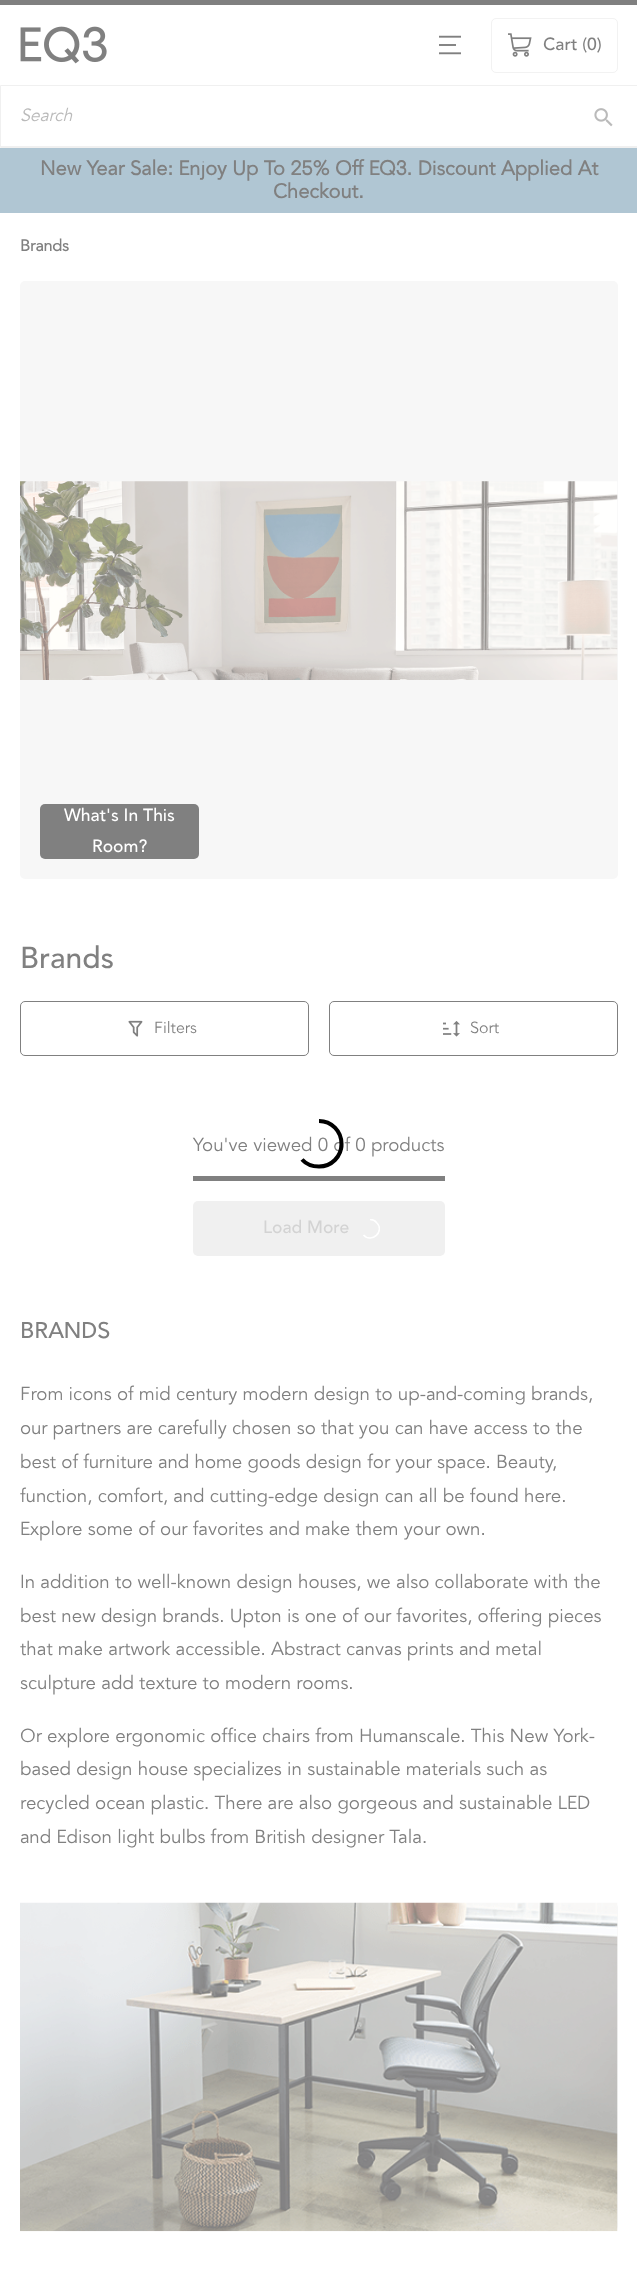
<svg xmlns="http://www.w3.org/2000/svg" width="637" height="2286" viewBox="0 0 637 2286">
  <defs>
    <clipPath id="clip1"><path d="M360 1219h20v20H360z"/></clipPath>
  </defs>
  <rect width="100%" height="100%" fill="#fff"/>
  <path d="M0 0h637v5H0z" fill="#808080"/>
  <image x="20" y="26" width="87" height="38" href="img/1.png"/>
  <image x="439" y="35" width="22" height="20" href="img/2.png"/>
  <rect x="491.5" y="18.5" width="126" height="54" rx="4.5" fill="none" stroke="#f2f2f2"/>
  <image x="508" y="33" width="24" height="24" href="img/3.png"/>
  <path d="M0 146h637v1H0z" fill="#f0f0f0"/>
  <path d="M0.5 85.5h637v62H0.5z" fill="none" stroke="#f0f0f0"/>
  <image x="594" y="108" width="19" height="19" href="img/4.png"/>
  <path d="M0 148h637v65H0z" fill="#b0c6d3"/>
  <rect x="20" y="281" width="598" height="598" rx="5" fill="#f7f7f7"/>
  <image x="20" y="481" width="598" height="199" href="img/5.png"/>
  <rect x="40" y="804" width="159" height="55" rx="5" fill="#808080"/>
  <rect x="20.5" y="1001.5" width="288" height="54" rx="4.5" fill="none" stroke="#808080"/>
  <image x="128" y="1020" width="15" height="17" href="img/6.png"/>
  <rect x="329.5" y="1001.5" width="288" height="54" rx="4.5" fill="none" stroke="#808080"/>
  <image x="443" y="1021" width="17" height="16" href="img/7.png"/>
  <path d="M193 1176h252v5H193z" fill="#808080"/>
  <rect x="193" y="1201" width="252" height="55" rx="5" fill="#f0f0f0"/>
  <g clip-path="url(#clip1)">
    <path d="M370 1219.5C372.5 1219.5 375 1220.5 376.5 1222.5C385.5 1231 371.5 1244 363.5 1235" fill="none" stroke="#fff" stroke-width="1.6"/>
  </g>
  <rect x="20" y="1903" width="598" height="328" rx="5" fill="#f7f7f7"/>
  <image x="20" y="1902" width="598" height="330" href="img/8.png"/>
  <text x="543" y="50" font-family="'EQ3'" font-size="17.5" font-weight="500" fill="#808080">Cart (0)</text>
  <text x="20" y="121" font-family="'EQ3'" font-size="17.5" font-style="italic" fill="#bababa">Search</text>
  <g font-family="'EQ3'" font-size="20" font-weight="bold" fill="#808080">
    <text x="40" y="175">New Year Sale: Enjoy Up To 25% Off EQ3. Discount Applied At</text>
    <text x="273" y="198">Checkout.</text>
  </g>
  <text x="20" y="251" font-family="'EQ3'" font-size="16" font-weight="bold" fill="#808080">Brands</text>
  <g font-family="'EQ3'" font-size="17.5" font-weight="500" fill="#fff">
    <text x="64" y="821">What's In This</text>
    <text x="92" y="852">Room?</text>
  </g>
  <text x="20" y="968" font-family="'EQ3'" font-size="30" font-weight="500" fill="#808080">Brands</text>
  <g font-family="'EQ3'" font-size="16" fill="#808080">
    <text x="154" y="1033">Filters</text>
    <text x="470" y="1033">Sort</text>
  </g>
  <text x="193" y="1151" font-family="'EQ3'" font-size="18.75" fill="#808080">You've viewed 0 of 0 products</text>
  <path d="M319 1121C331.5 1121 341.5 1131 341.5 1144C341.5 1156.5 331.5 1166.5 319 1166.5C312 1166.5 306 1164 302 1159.5" fill="none" stroke="#000" stroke-width="4.1"/>
  <text x="263" y="1233" font-family="'EQ3'" font-size="17.5" font-weight="500" fill="#d3d3d3">Load More</text>
  <text x="20" y="1338" font-family="'EQ3'" font-size="22.5" font-weight="500" fill="#808080">BRANDS</text>
  <g font-family="'EQ3'" font-size="18.75" fill="#808080">
    <text x="20" y="1400">From icons of mid century modern design to up-and-coming brands,</text>
    <text x="20" y="1434">our partners are carefully chosen so that you can have access to the</text>
    <text x="20" y="1468">best of furniture and home goods design for your space. Beauty,</text>
    <text x="20" y="1502">function, comfort, and cutting-edge design can all be found here.</text>
    <text x="20" y="1535">Explore some of our favorites and make them your own.</text>
    <text x="20" y="1588">In addition to well-known design houses, we also collaborate with the</text>
    <text x="20" y="1622">best new design brands. Upton is one of our favorites, offering pieces</text>
    <text x="20" y="1655">that make artwork accessible. Abstract canvas prints and metal</text>
    <text x="20" y="1689">sculpture add texture to modern rooms.</text>
    <text x="20" y="1742">Or explore ergonomic office chairs from Humanscale. This New York-</text>
    <text x="20" y="1775">based design house specializes in sustainable materials such as</text>
    <text x="20" y="1809">recycled ocean plastic. There are also gorgeous and sustainable LED</text>
    <text x="20" y="1843">and Edison light bulbs from British designer Tala.</text>
  </g>
</svg>
